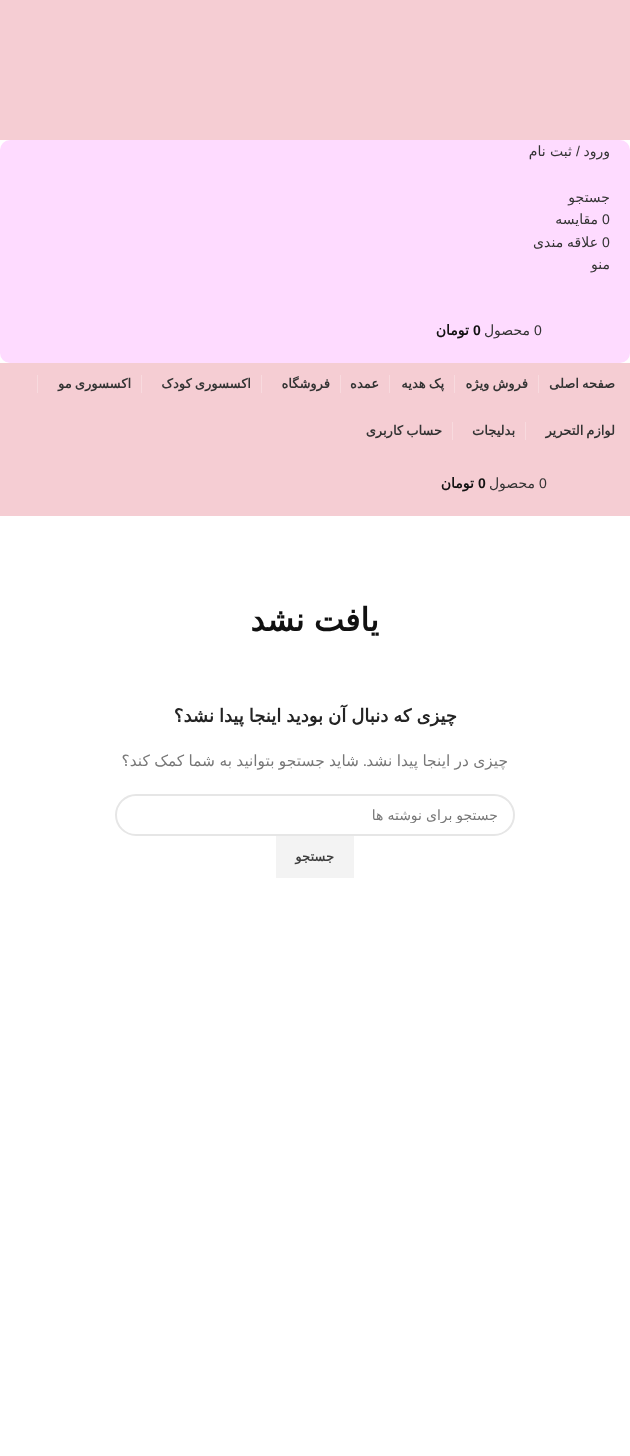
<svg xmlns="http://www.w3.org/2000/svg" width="630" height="1456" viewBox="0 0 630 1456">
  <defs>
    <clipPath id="clip1"><path d="M132 807h366v16H132z"/></clipPath>
  </defs>
  <rect width="100%" height="100%" fill="#fff"/>
  <path d="M0 0h630v140H0z" fill="#f5cdd3"/>
  <rect y="140" width="630" height="223" rx="10" fill="#fedbff"/>
  <path d="M0 363h630v153H0z" fill="#f5cdd3"/>
  <path d="M538 375h1v18H538z" fill="#f8dade"/>
  <path d="M454 375h1v18H454z" fill="#f8dade"/>
  <path d="M389 375h1v18H389z" fill="#f8dade"/>
  <path d="M340 375h1v18H340z" fill="#f8dade"/>
  <path d="M261 375h1v18H261z" fill="#f8dade"/>
  <path d="M141 375h1v18H141z" fill="#f8dade"/>
  <path d="M37 375h1v18H37z" fill="#f8dade"/>
  <path d="M525 422h1v18H525z" fill="#f8dade"/>
  <path d="M452 422h1v18H452z" fill="#f8dade"/>
  <rect x="116" y="795" width="398" height="40" rx="20" fill="none" stroke="#e6e6e6" stroke-width="2"/>
  <path d="M276 836h78v42H276z" fill="#f3f3f3"/>
  <text x="610" y="156" font-family="DejaVu Sans" font-size="14" direction="rtl" fill="#333">ورود</text>
  <text x="580" y="156" font-family="Liberation Sans" font-size="14" direction="rtl" fill="#333">/</text>
  <g font-family="DejaVu Sans" font-size="14" direction="rtl" fill="#333">
    <text x="572" y="156">ثبت نام</text>
    <text x="610" y="202">جستجو</text>
  </g>
  <text x="602" y="224" font-family="Liberation Sans" font-size="14" fill="#333">0</text>
  <text x="598" y="224" font-family="DejaVu Sans" font-size="14" direction="rtl" fill="#333">مقایسه</text>
  <text x="602" y="247" font-family="Liberation Sans" font-size="14" fill="#333">0</text>
  <g font-family="DejaVu Sans" font-size="14" direction="rtl" fill="#333">
    <text x="598" y="247" word-spacing="-0.5">علاقه مندی</text>
    <text x="610" y="269">منو</text>
  </g>
  <text x="534" y="335" font-family="Liberation Sans" font-size="14" fill="#333">0</text>
  <text x="530" y="335" font-family="DejaVu Sans" font-size="14" direction="rtl" fill="#333">محصول</text>
  <text x="473" y="335" font-family="Liberation Sans" font-size="14" font-weight="bold" fill="#111">0</text>
  <text x="469" y="335" font-family="DejaVu Sans" font-size="14" font-weight="bold" direction="rtl" fill="#111">تومان</text>
  <g font-family="DejaVu Sans" font-size="13" font-weight="bold" direction="rtl" fill="#333">
    <text x="615" y="388" word-spacing="-1">صفحه اصلی</text>
    <text x="528" y="388" word-spacing="-1">فروش ویژه</text>
    <text x="444" y="388" word-spacing="-1">پک هدیه</text>
    <text x="379" y="388">عمده</text>
    <text x="330" y="388">فروشگاه</text>
    <text x="251" y="388" word-spacing="-1">اکسسوری کودک</text>
    <text x="131" y="388" word-spacing="-1">اکسسوری مو</text>
    <text x="615" y="435" word-spacing="-1">لوازم التحریر</text>
    <text x="515" y="435">بدلیجات</text>
    <text x="442" y="435" word-spacing="-1">حساب کاربری</text>
  </g>
  <text x="539" y="488" font-family="Liberation Sans" font-size="14" fill="#333">0</text>
  <text x="535" y="488" font-family="DejaVu Sans" font-size="14" direction="rtl" fill="#333">محصول</text>
  <text x="478" y="488" font-family="Liberation Sans" font-size="14" font-weight="bold" fill="#111">0</text>
  <text x="474" y="488" font-family="DejaVu Sans" font-size="14" font-weight="bold" direction="rtl" fill="#111">تومان</text>
  <text x="379" y="631" word-spacing="-1" font-family="DejaVu Sans" font-size="32" font-weight="bold" direction="rtl" fill="#111">یافت نشد</text>
  <text x="457" y="722" word-spacing="-0.75" font-family="DejaVu Sans" font-size="18" font-weight="bold" direction="rtl" fill="#242424">چیزی که دنبال آن بودید اینجا پیدا نشد؟</text>
  <text x="508" y="766" word-spacing="-0.5" font-family="DejaVu Sans" font-size="15.4" direction="rtl" fill="#777">چیزی در اینجا پیدا نشد</text>
  <text x="367" y="766" font-family="Liberation Sans" font-size="15.4" direction="rtl" fill="#777">.</text>
  <text x="359" y="766" word-spacing="-0.5" font-family="DejaVu Sans" font-size="15.4" direction="rtl" fill="#777">شاید جستجو بتوانید به شما کمک کند؟</text>
  <g clip-path="url(#clip1)">
    <text x="498" y="820" word-spacing="-0.5" font-family="DejaVu Sans" font-size="14" direction="rtl" fill="#777">جستجو برای نوشته ها</text>
  </g>
  <text x="334" y="861" font-family="DejaVu Sans" font-size="13" font-weight="bold" direction="rtl" fill="#3e3e3e">جستجو</text>
</svg>
